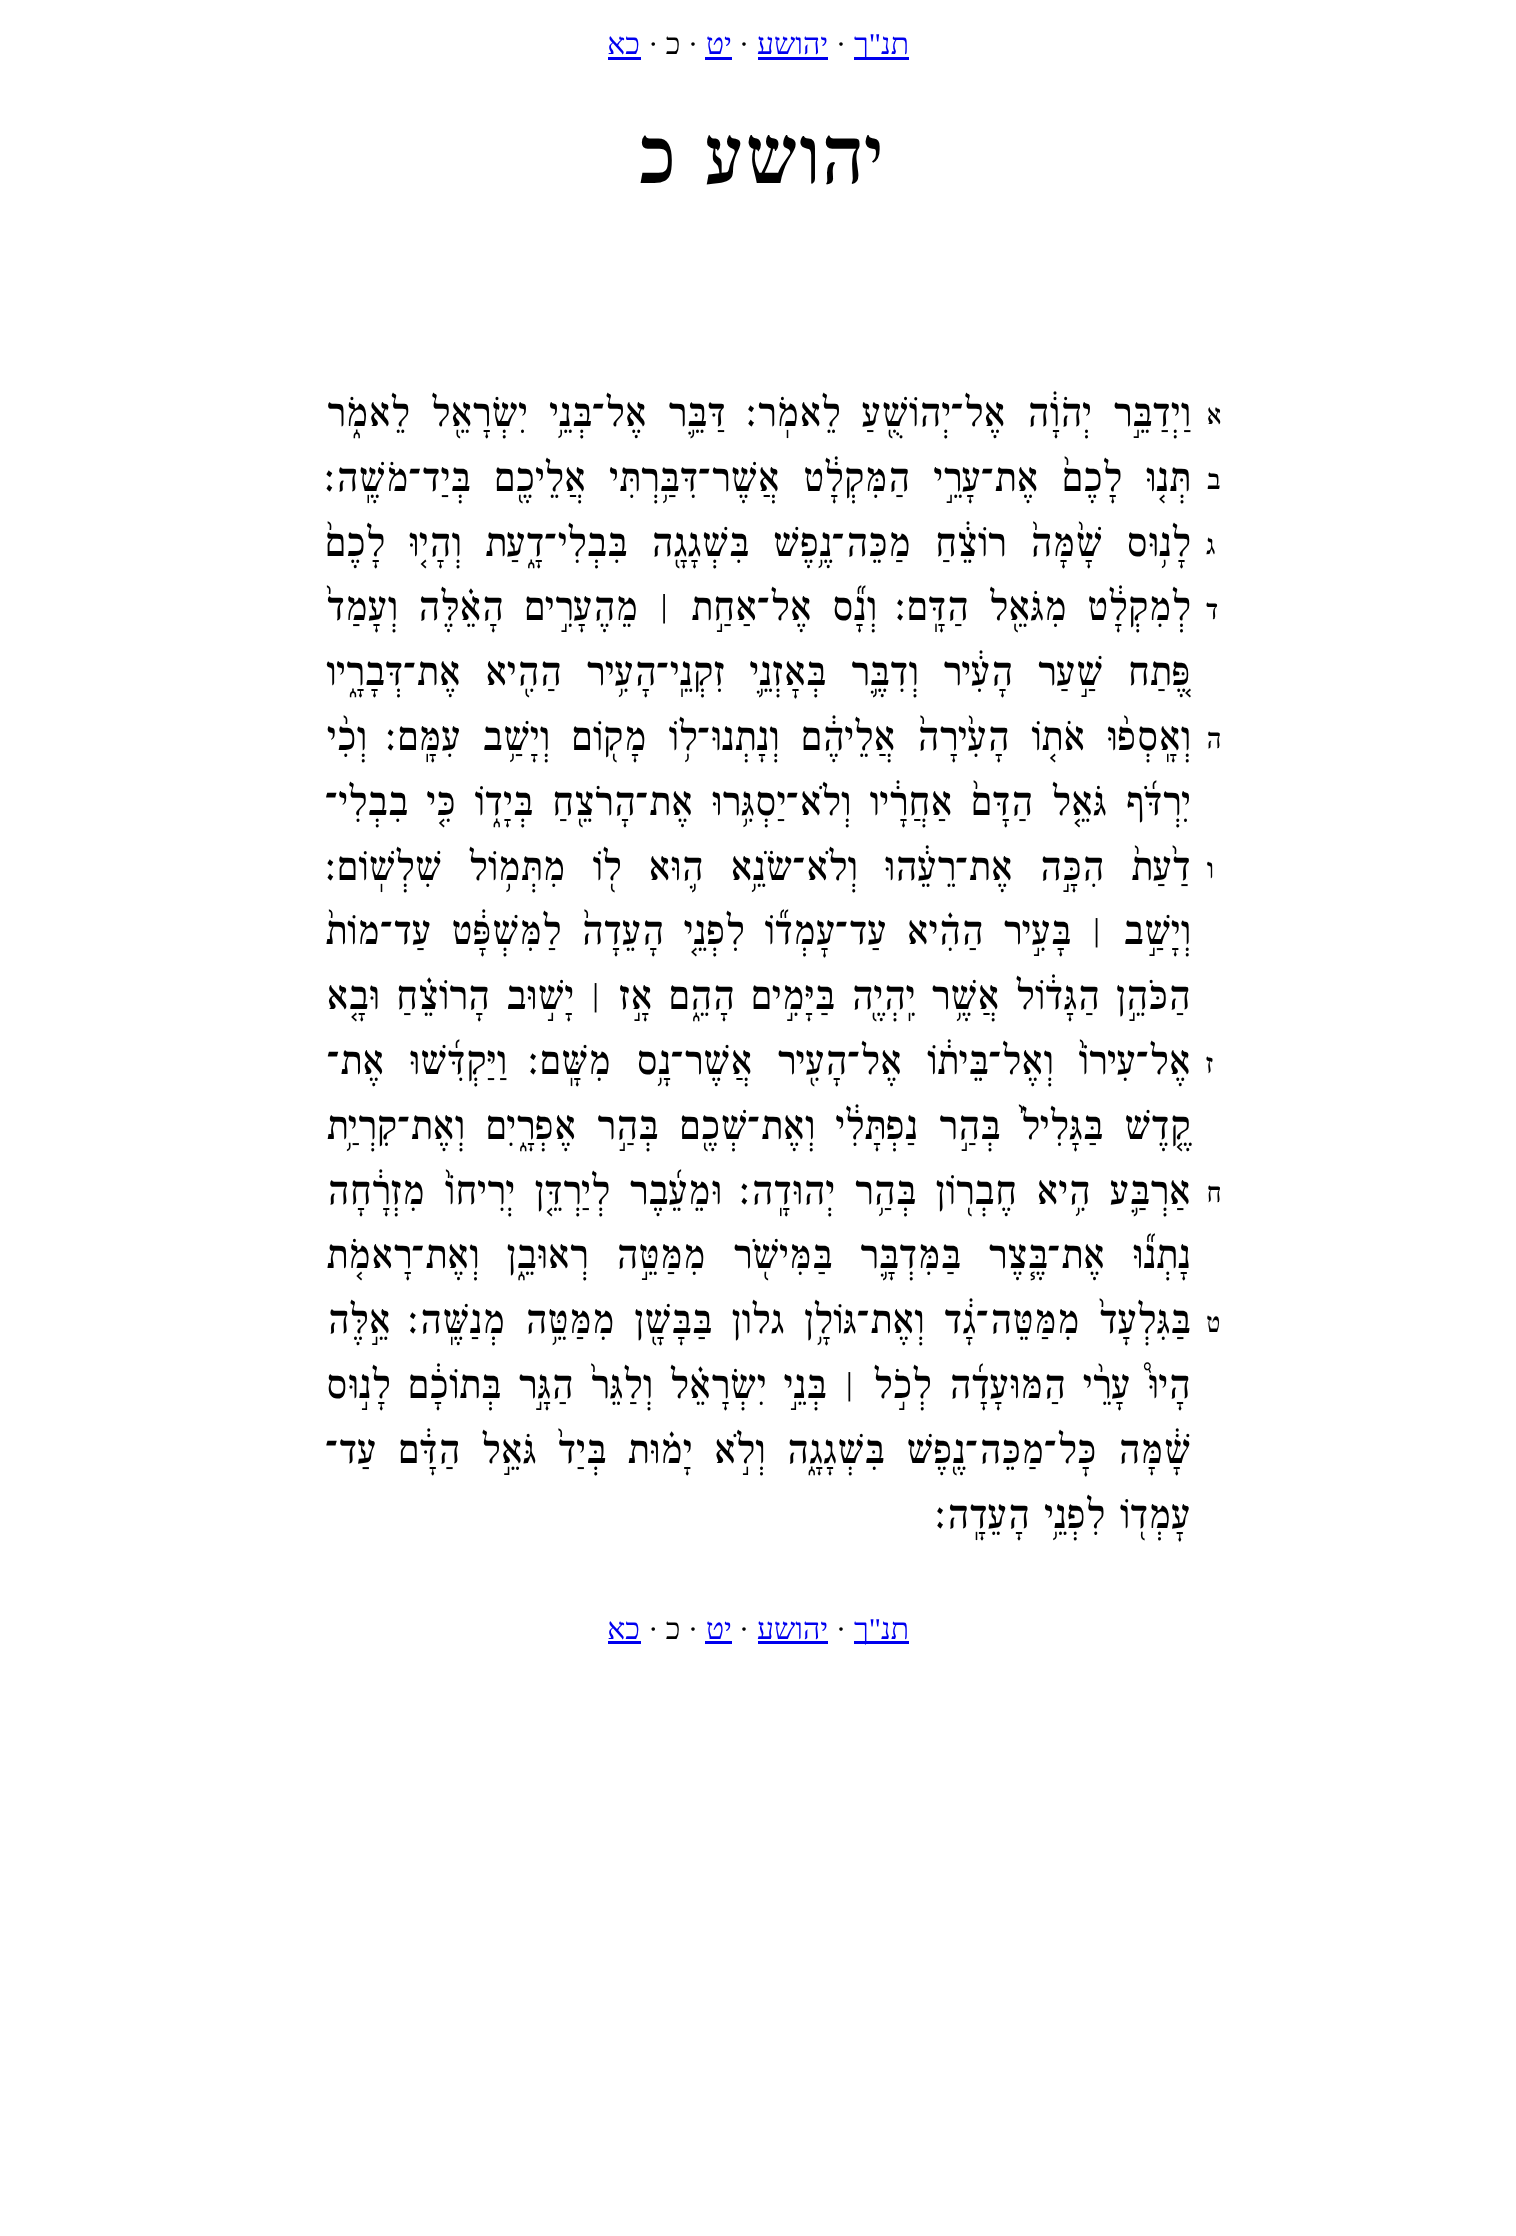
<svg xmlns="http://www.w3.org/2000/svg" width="1516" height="2236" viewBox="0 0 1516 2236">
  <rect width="100%" height="100%" fill="#fff"/>
  <path d="M854 57h55v3H854z" fill="#00e"/>
  <path d="M758 57h70v3H758z" fill="#00e"/>
  <path d="M705 57h27v3H705z" fill="#00e"/>
  <path d="M608 57h33v3H608z" fill="#00e"/>
  <path d="M854 1641h55v3H854z" fill="#00e"/>
  <path d="M758 1641h70v3H758z" fill="#00e"/>
  <path d="M705 1641h27v3H705z" fill="#00e"/>
  <path d="M608 1641h33v3H608z" fill="#00e"/>
  <text x="909" y="54" font-family="Liberation Serif" font-size="30" direction="rtl" fill="#00e">תנ"ך</text>
  <text x="836" y="54" font-family="Liberation Serif" font-size="30" fill="#000">·</text>
  <text x="828" y="54" font-family="Liberation Serif" font-size="30" direction="rtl" fill="#00e">יהושע</text>
  <text x="739" y="54" font-family="Liberation Serif" font-size="30" fill="#000">·</text>
  <text x="732" y="54" font-family="Liberation Serif" font-size="30" direction="rtl" fill="#00e">יט</text>
  <text x="698" y="54" font-family="Liberation Serif" font-size="30" direction="rtl" fill="#000">· כ ·</text>
  <text x="640" y="54" font-family="Liberation Serif" font-size="30" direction="rtl" fill="#00e">כא</text>
  <text x="882" y="183" font-family="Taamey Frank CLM" font-size="86.5" font-weight="500" direction="rtl" fill="#000">יהושע כ</text>
  <text x="1221" y="424" font-family="Taamey Frank CLM" font-size="30" font-weight="500" direction="rtl" fill="#000">א</text>
  <g font-family="Taamey Frank CLM" font-size="43.25" font-weight="500" direction="rtl" fill="#000">
    <text x="1190" y="426" word-spacing="7">וַיְדַבֵּ֣ר יְהֹוָ֔ה אֶל־יְהוֹשֻׁ֖עַ לֵאמֹֽר׃</text>
    <text x="725" y="426" word-spacing="7">דַּבֵּ֛ר אֶל־בְּנֵ֥י יִשְׂרָאֵ֖ל לֵאמֹ֑ר</text>
  </g>
  <text x="1220" y="489" font-family="Taamey Frank CLM" font-size="30" font-weight="500" direction="rtl" fill="#000">ב</text>
  <text x="1190" y="491" word-spacing="9" font-family="Taamey Frank CLM" font-size="43.25" font-weight="500" direction="rtl" fill="#000">תְּנ֤וּ לָכֶם֙ אֶת־עָרֵ֣י הַמִּקְלָ֔ט אֲשֶׁר־דִּבַּ֥רְתִּי אֲלֵיכֶ֖ם בְּיַד־מֹשֶֽׁה׃</text>
  <text x="1215" y="554" font-family="Taamey Frank CLM" font-size="30" font-weight="500" direction="rtl" fill="#000">ג</text>
  <text x="1190" y="556" word-spacing="9" font-family="Taamey Frank CLM" font-size="43.25" font-weight="500" direction="rtl" fill="#000">לָנ֥וּס שָׁ֙מָּה֙ רוֹצֵ֔חַ מַכֵּה־נֶ֥פֶשׁ בִּשְׁגָגָ֖ה בִּבְלִי־דָ֑עַת וְהָי֤וּ לָכֶם֙</text>
  <text x="1218" y="619" font-family="Taamey Frank CLM" font-size="30" font-weight="500" direction="rtl" fill="#000">ד</text>
  <g font-family="Taamey Frank CLM" font-size="43.25" font-weight="500" direction="rtl" fill="#000">
    <text x="1190" y="620" word-spacing="5.5">לְמִקְלָ֔ט מִגֹּאֵ֖ל הַדָּֽם׃</text>
    <text x="876" y="620" word-spacing="5.5">וְנָ֞ס אֶל־אַחַ֣ת ׀ מֵהֶעָרִ֣ים הָאֵ֗לֶּה וְעָמַד֙</text>
    <text x="1190" y="685" word-spacing="10">פֶּ֚תַח שַׁ֣עַר הָעִ֔יר וְדִבֶּ֛ר בְּאׇזְנֵ֛י זִקְנֵֽי־הָעִ֥יר הַהִ֖יא אֶת־דְּבָרָ֑יו</text>
  </g>
  <text x="1221" y="748" font-family="Taamey Frank CLM" font-size="30" font-weight="500" direction="rtl" fill="#000">ה</text>
  <g font-family="Taamey Frank CLM" font-size="43.25" font-weight="500" direction="rtl" fill="#000">
    <text x="1190" y="750" word-spacing="7">וְאָֽסְפ֨וּ אֹת֤וֹ הָעִ֙ירָה֙ אֲלֵיהֶ֔ם וְנָתְנוּ־ל֥וֹ מָק֖וֹם וְיָשַׁ֥ב עִמָּֽם׃</text>
    <text x="366" y="750">וְכִ֨י</text>
    <text x="1190" y="815" word-spacing="4">יִרְדֹּ֜ף גֹּאֵ֤ל הַדָּם֙ אַחֲרָ֔יו וְלֹא־יַסְגִּ֥רוּ אֶת־הָרֹצֵ֖חַ בְּיָד֑וֹ כִּ֤י בִבְלִי־</text>
  </g>
  <text x="1213" y="878" font-family="Taamey Frank CLM" font-size="30" font-weight="500" direction="rtl" fill="#000">ו</text>
  <g font-family="Taamey Frank CLM" font-size="43.25" font-weight="500" direction="rtl" fill="#000">
    <text x="1190" y="880" word-spacing="12.25">דַ֙עַת֙ הִכָּ֣ה אֶת־רֵעֵ֔הוּ וְלֹא־שֹׂנֵ֥א ה֛וּא ל֖וֹ מִתְּמ֥וֹל שִׁלְשֽׁוֹם׃</text>
    <text x="1190" y="944" word-spacing="5.25">וְיָשַׁ֣ב ׀ בָּעִ֣יר הַהִ֗יא עַד־עׇמְד֞וֹ לִפְנֵ֤י הָעֵדָה֙ לַמִּשְׁפָּ֔ט עַד־מוֹת֙</text>
    <text x="1190" y="1009" word-spacing="1.6">הַכֹּהֵ֣ן הַגָּד֔וֹל אֲשֶׁ֥ר יִֽהְיֶ֖ה בַּיָּמִ֣ים הָהֵ֑ם אָ֣ז ׀ יָשׁ֣וּב הָרוֹצֵ֗חַ וּבָ֤א</text>
  </g>
  <text x="1213" y="1073" font-family="Taamey Frank CLM" font-size="30" font-weight="500" direction="rtl" fill="#000">ז</text>
  <g font-family="Taamey Frank CLM" font-size="43.25" font-weight="500" direction="rtl" fill="#000">
    <text x="1190" y="1074" word-spacing="10.5">אֶל־עִירוֹ֙ וְאֶל־בֵּית֔וֹ אֶל־הָעִ֖יר אֲשֶׁר־נָ֥ס מִשָּֽׁם׃</text>
    <text x="506" y="1074" word-spacing="10.5">וַיַּקְדִּ֜שׁוּ אֶת־</text>
    <text x="1190" y="1139" word-spacing="6.25">קֶ֤דֶשׁ בַּגָּלִיל֙ בְּהַ֣ר נַפְתָּלִ֔י וְאֶת־שְׁכֶ֖ם בְּהַ֣ר אֶפְרָ֑יִם וְאֶת־קִרְיַ֥ת</text>
  </g>
  <text x="1221" y="1202" font-family="Taamey Frank CLM" font-size="30" font-weight="500" direction="rtl" fill="#000">ח</text>
  <g font-family="Taamey Frank CLM" font-size="43.25" font-weight="500" direction="rtl" fill="#000">
    <text x="1190" y="1204" word-spacing="5">אַרְבַּ֛ע הִ֥יא חֶבְר֖וֹן בְּהַ֥ר יְהוּדָֽה׃</text>
    <text x="721" y="1204" word-spacing="5">וּמֵעֵ֜בֶר לְיַרְדֵּ֤ן יְרִיחוֹ֙ מִזְרָ֔חָה</text>
    <text x="1190" y="1268" word-spacing="13">נָתְנ֞וּ אֶת־בֶּ֧צֶר בַּמִּדְבָּ֛ר בַּמִּישֹׁ֖ר מִמַּטֵּ֣ה רְאוּבֵ֑ן וְאֶת־רָאמֹ֤ת</text>
  </g>
  <text x="1220" y="1332" font-family="Taamey Frank CLM" font-size="30" font-weight="500" direction="rtl" fill="#000">ט</text>
  <g font-family="Taamey Frank CLM" font-size="43.25" font-weight="500" direction="rtl" fill="#000">
    <text x="1190" y="1333" word-spacing="5">בַּגִּלְעָד֙ מִמַּטֵּה־גָ֔ד וְאֶת־גּוֹלָ֥ן גלון בַּבָּשָׁ֖ן מִמַּטֵּ֥ה מְנַשֶּֽׁה׃</text>
    <text x="390" y="1333">אֵ֣לֶּה</text>
    <text x="1190" y="1398" word-spacing="2.75">הָיוּ֩ עָרֵ֨י הַמּוּעָדָ֜ה לְכֹ֣ל ׀ בְּנֵ֣י יִשְׂרָאֵ֗ל וְלַגֵּר֙ הַגָּ֣ר בְּתוֹכָ֔ם לָנ֣וּס</text>
    <text x="1190" y="1463" word-spacing="6.75">שָׁ֔מָּה כׇּל־מַכֵּה־נֶ֖פֶשׁ בִּשְׁגָגָ֑ה וְלֹ֣א יָמ֗וּת בְּיַד֙ גֹּאֵ֣ל הַדָּ֔ם עַד־</text>
    <text x="1190" y="1528">עׇמְד֖וֹ לִפְנֵ֥י הָעֵדָֽה׃</text>
  </g>
  <text x="909" y="1639" font-family="Liberation Serif" font-size="30" direction="rtl" fill="#00e">תנ"ך</text>
  <text x="836" y="1639" font-family="Liberation Serif" font-size="30" fill="#000">·</text>
  <text x="828" y="1639" font-family="Liberation Serif" font-size="30" direction="rtl" fill="#00e">יהושע</text>
  <text x="739" y="1639" font-family="Liberation Serif" font-size="30" fill="#000">·</text>
  <text x="732" y="1639" font-family="Liberation Serif" font-size="30" direction="rtl" fill="#00e">יט</text>
  <text x="698" y="1639" font-family="Liberation Serif" font-size="30" direction="rtl" fill="#000">· כ ·</text>
  <text x="640" y="1639" font-family="Liberation Serif" font-size="30" direction="rtl" fill="#00e">כא</text>
</svg>
